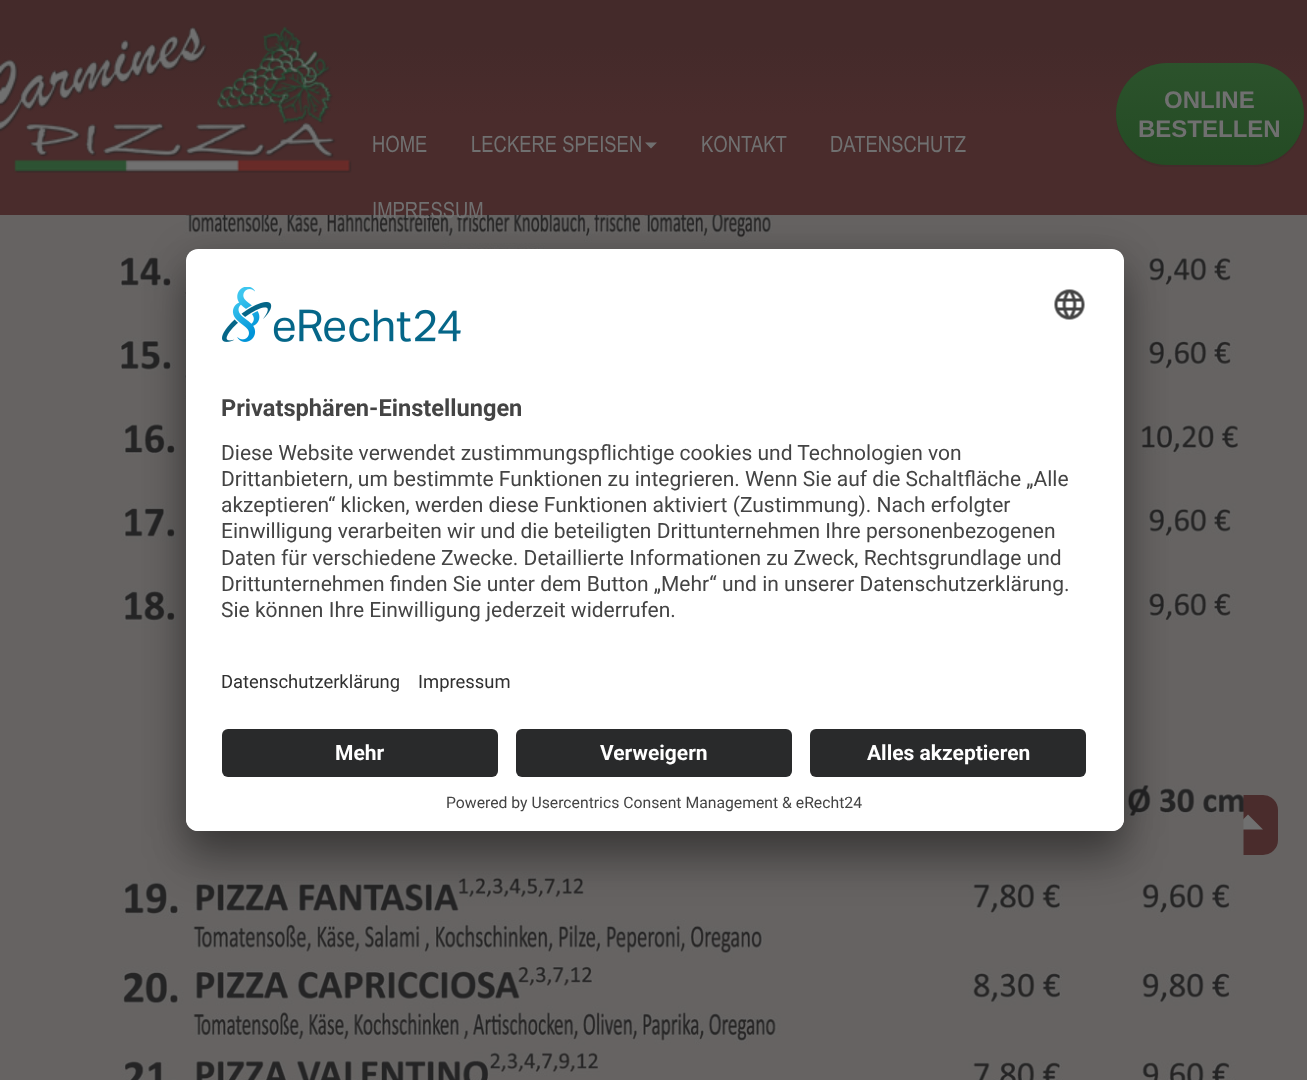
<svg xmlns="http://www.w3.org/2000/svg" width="1307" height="1080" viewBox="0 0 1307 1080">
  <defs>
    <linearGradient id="g1" gradientUnits="userSpaceOnUse" x1="654" y1="215" x2="654" y2="0"><stop offset="0" stop-color="#4a2c2c"/><stop offset="0.46" stop-color="#4a2c2c"/><stop offset="0.79" stop-color="#442a2a"/><stop offset="1" stop-color="#442a2a"/></linearGradient>
    <linearGradient id="g2" gradientUnits="userSpaceOnUse" x1="1210" y1="165" x2="1210" y2="63"><stop offset="0" stop-color="#242424" stop-opacity="0.1"/><stop offset="1" stop-color="#707070" stop-opacity="0.1"/></linearGradient>
    <clipPath id="clip1"><rect x="186" y="249" width="938" height="582" rx="12"/></clipPath>
    <clipPath id="clip2"><path d="M198 249H1112C1118.5 249 1124 254.5 1124 261V717H186V261C186 254.5 191.5 249 198 249Z"/></clipPath>
  </defs>
  <rect width="100%" height="100%" fill="#666362"/>
  <path d="M0 0h1307v215H0z" fill="url(#g1)"/>
  <image x="0" y="26" width="352" height="147" href="img/1.png"/>
  <path d="M1116 115V116C1116 144 1139 167 1167 167H1253C1281 167 1304 144 1304 116C1304 111 1303 107 1302 103C1303 106 1304 110 1304 114C1304 142 1281 165 1252 165H1167C1139 165 1117 143 1116 115Z" fill="#442b2b"/>
  <rect x="1116" y="63" width="188" height="102" rx="51" fill="#244f24"/>
  <rect x="1116" y="63" width="188" height="102" rx="51" fill="url(#g2)"/>
  <path d="M645 142.5H657L651 148.5Z" fill="#707070"/>
  <image x="120" y="215" width="1119" height="440" href="img/2.png"/>
  <rect x="1218" y="795" width="60" height="60" rx="15" fill="#4a2c2c"/>
  <path d="M1263 829.5H1233L1248 814.5Z" fill="#707070"/>
  <image x="121" y="785" width="1123" height="295" href="img/3.png"/>
  <rect x="186" y="279" width="938" height="582" rx="12" fill="#0000004d" filter="blur(21px)"/>
  <rect x="186" y="257" width="938" height="582" rx="12" fill="#00000038" filter="blur(19.5px)"/>
  <rect x="186" y="249" width="938" height="582" rx="12" fill="#fff"/>
  <g clip-path="url(#clip1)">
    <g clip-path="url(#clip2)">
      <path d="M186 251h938v466H186z" fill="#fff"/>
    </g>
  </g>
  <image x="222" y="287" width="239" height="55" href="img/4.png"/>
  <image x="1054" y="289" width="31" height="31" href="img/5.png"/>
  <path d="M186 717H1124V819C1124 825.5 1118.5 831 1112 831H198C191.5 831 186 825.5 186 819Z" fill="#fff"/>
  <rect x="222" y="729" width="276" height="48" rx="6" fill="#292a2b"/>
  <rect x="516" y="729" width="276" height="48" rx="6" fill="#292a2b"/>
  <rect x="810" y="729" width="276" height="48" rx="6" fill="#292a2b"/>
  <g font-family="Liberation Sans" font-size="24" font-weight="bold" fill="#707070">
    <text x="1164" y="108">ONLINE</text>
    <text x="1138" y="137">BESTELLEN</text>
  </g>
  <g font-family="Arial" font-size="22.5" fill="#707070">
    <text x="372" y="152">HOME</text>
    <text x="471" y="152">LECKERE SPEISEN</text>
    <text x="701" y="152">KONTAKT</text>
    <text x="830" y="152">DATENSCHUTZ</text>
    <text x="372" y="218">IMPRESSUM</text>
  </g>
  <text x="221" y="416" font-family="Roboto" font-size="23.6" font-weight="bold" fill="#444">Privatsphären-Einstellungen</text>
  <g font-family="Roboto" font-size="21" fill="#444">
    <text x="221" y="460">Diese Website verwendet zustimmungspflichtige cookies und Technologien von</text>
    <text x="221" y="486">Drittanbietern, um bestimmte Funktionen zu integrieren. Wenn Sie auf die Schaltfläche „Alle</text>
    <text x="221" y="512">akzeptieren“ klicken, werden diese Funktionen aktiviert (Zustimmung). Nach erfolgter</text>
    <text x="221" y="538">Einwilligung verarbeiten wir und die beteiligten Drittunternehmen Ihre personenbezogenen</text>
    <text x="221" y="565">Daten für verschiedene Zwecke. Detaillierte Informationen zu Zweck, Rechtsgrundlage und</text>
    <text x="221" y="591">Drittunternehmen finden Sie unter dem Button „Mehr“ und in unserer Datenschutzerklärung.</text>
    <text x="221" y="617">Sie können Ihre Einwilligung jederzeit widerrufen.</text>
  </g>
  <g font-family="Roboto" font-size="18.4" fill="#303030">
    <text x="221" y="688">Datenschutzerklärung</text>
    <text x="418" y="688">Impressum</text>
  </g>
  <g font-family="Roboto" font-size="21" font-weight="bold" fill="#fff">
    <text x="335" y="760">Mehr</text>
    <text x="600" y="760">Verweigern</text>
    <text x="867" y="760">Alles akzeptieren</text>
  </g>
  <text x="446" y="808" font-family="Roboto" font-size="15.75" fill="#444">Powered by Usercentrics Consent Management &amp; eRecht24</text>
</svg>
